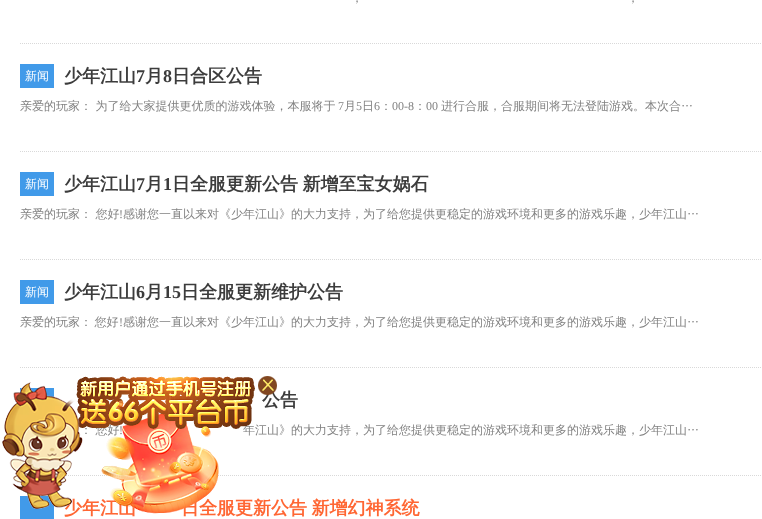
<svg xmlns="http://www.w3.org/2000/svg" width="762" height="519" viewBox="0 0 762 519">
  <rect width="100%" height="100%" fill="#fff"/>
  <path d="M20 43.5H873" fill="none" stroke="#d9d9d9" stroke-dasharray="1 1"/>
  <path d="M20 151.5H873" fill="none" stroke="#d9d9d9" stroke-dasharray="1 1"/>
  <path d="M20 64h34v24H20z" fill="#419ae9"/>
  <path d="M20 259.5H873" fill="none" stroke="#d9d9d9" stroke-dasharray="1 1"/>
  <path d="M20 172h34v24H20z" fill="#419ae9"/>
  <path d="M20 367.5H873" fill="none" stroke="#d9d9d9" stroke-dasharray="1 1"/>
  <path d="M20 280h34v24H20z" fill="#419ae9"/>
  <path d="M20 475.5H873" fill="none" stroke="#d9d9d9" stroke-dasharray="1 1"/>
  <path d="M20 388h34v13H20z" fill="#419ae9"/>
  <path d="M20 496h34v23H20z" fill="#419ae9"/>
  <g font-family="WenQuanYi Zen Hei" font-size="12" font-weight="500" fill="#828282">
    <text x="351" y="2">，</text>
    <text x="627" y="2">，</text>
  </g>
  <text x="25" y="80" font-family="WenQuanYi Zen Hei" font-size="12" font-weight="500" fill="#fff">新闻</text>
  <text x="64" y="82" font-family="WenQuanYi Zen Hei" font-size="18" font-weight="bold" fill="#3c3c3c">少年江山</text>
  <text x="136" y="82" font-family="Liberation Serif" font-size="18" font-weight="bold" fill="#3c3c3c">7</text>
  <text x="145" y="82" font-family="WenQuanYi Zen Hei" font-size="18" font-weight="bold" fill="#3c3c3c">月</text>
  <text x="163" y="82" font-family="Liberation Serif" font-size="18" font-weight="bold" fill="#3c3c3c">8</text>
  <text x="172" y="82" font-family="WenQuanYi Zen Hei" font-size="18" font-weight="bold" fill="#3c3c3c">日合区公告</text>
  <text x="20" y="110" font-family="WenQuanYi Zen Hei" font-size="12" font-weight="500" fill="#828282">亲爱的玩家： 为了给大家提供更优质的游戏体验，本服将于</text>
  <text x="338" y="110" font-family="Liberation Serif" font-size="12" fill="#828282">7</text>
  <text x="344" y="110" font-family="WenQuanYi Zen Hei" font-size="12" font-weight="500" fill="#828282">月</text>
  <text x="356" y="110" font-family="Liberation Serif" font-size="12" fill="#828282">5</text>
  <text x="362" y="110" font-family="WenQuanYi Zen Hei" font-size="12" font-weight="500" fill="#828282">日</text>
  <text x="374" y="110" font-family="Liberation Serif" font-size="12" fill="#828282">6</text>
  <text x="380" y="110" font-family="WenQuanYi Zen Hei" font-size="12" font-weight="500" fill="#828282">：</text>
  <text x="392" y="110" font-family="Liberation Serif" font-size="12" fill="#828282">00-8</text>
  <text x="414" y="110" font-family="WenQuanYi Zen Hei" font-size="12" font-weight="500" fill="#828282">：</text>
  <text x="426" y="110" font-family="Liberation Serif" font-size="12" fill="#828282">00</text>
  <text x="441" y="110" font-family="WenQuanYi Zen Hei" font-size="12" font-weight="500" fill="#828282">进行合服，合服期间将无法登陆游戏。本次合…</text>
  <text x="25" y="188" font-family="WenQuanYi Zen Hei" font-size="12" font-weight="500" fill="#fff">新闻</text>
  <text x="64" y="190" font-family="WenQuanYi Zen Hei" font-size="18" font-weight="bold" fill="#3c3c3c">少年江山</text>
  <text x="136" y="190" font-family="Liberation Serif" font-size="18" font-weight="bold" fill="#3c3c3c">7</text>
  <text x="145" y="190" font-family="WenQuanYi Zen Hei" font-size="18" font-weight="bold" fill="#3c3c3c">月</text>
  <text x="163" y="190" font-family="Liberation Serif" font-size="18" font-weight="bold" fill="#3c3c3c">1</text>
  <text x="172" y="190" word-spacing="-1" font-family="WenQuanYi Zen Hei" font-size="18" font-weight="bold" fill="#3c3c3c">日全服更新公告 新增至宝女娲石</text>
  <text x="20" y="218" font-family="WenQuanYi Zen Hei" font-size="12" font-weight="500" fill="#828282">亲爱的玩家： 您好</text>
  <text x="119" y="218" font-family="Liberation Serif" font-size="12" fill="#828282">!</text>
  <text x="123" y="218" font-family="WenQuanYi Zen Hei" font-size="12" font-weight="500" fill="#828282">感谢您一直以来对《少年江山》的大力支持，为了给您提供更稳定的游戏环境和更多的游戏乐趣，少年江山…</text>
  <text x="25" y="296" font-family="WenQuanYi Zen Hei" font-size="12" font-weight="500" fill="#fff">新闻</text>
  <text x="64" y="298" font-family="WenQuanYi Zen Hei" font-size="18" font-weight="bold" fill="#3c3c3c">少年江山</text>
  <text x="136" y="298" font-family="Liberation Serif" font-size="18" font-weight="bold" fill="#3c3c3c">6</text>
  <text x="145" y="298" font-family="WenQuanYi Zen Hei" font-size="18" font-weight="bold" fill="#3c3c3c">月</text>
  <text x="163" y="298" font-family="Liberation Serif" font-size="18" font-weight="bold" fill="#3c3c3c">15</text>
  <text x="181" y="298" font-family="WenQuanYi Zen Hei" font-size="18" font-weight="bold" fill="#3c3c3c">日全服更新维护公告</text>
  <text x="20" y="326" word-spacing="-1" font-family="WenQuanYi Zen Hei" font-size="12" font-weight="500" fill="#828282">亲爱的玩家： 您好</text>
  <text x="119" y="326" font-family="Liberation Serif" font-size="12" fill="#828282">!</text>
  <text x="123" y="326" font-family="WenQuanYi Zen Hei" font-size="12" font-weight="500" fill="#828282">感谢您一直以来对《少年江山》的大力支持，为了给您提供更稳定的游戏环境和更多的游戏乐趣，少年江山…</text>
  <text x="262" y="406" font-family="WenQuanYi Zen Hei" font-size="18" font-weight="bold" fill="#3c3c3c">公告</text>
  <text x="80" y="434" font-family="WenQuanYi Zen Hei" font-size="12" font-weight="500" fill="#828282">： 您好</text>
  <text x="119" y="434" font-family="Liberation Serif" font-size="12" fill="#828282">!</text>
  <text x="243" y="434" font-family="WenQuanYi Zen Hei" font-size="12" font-weight="500" fill="#828282">年江山》的大力支持，为了给您提供更稳定的游戏环境和更多的游戏乐趣，少年江山…</text>
  <g font-family="WenQuanYi Zen Hei" font-size="18" font-weight="bold" fill="#f63">
    <text x="64" y="514">少年江山</text>
    <text x="181" y="514" word-spacing="-1">日全服更新公告 新增幻神系统</text>
  </g>
  <image x="2" y="376" width="275" height="138" href="img/1.png"/>
</svg>
